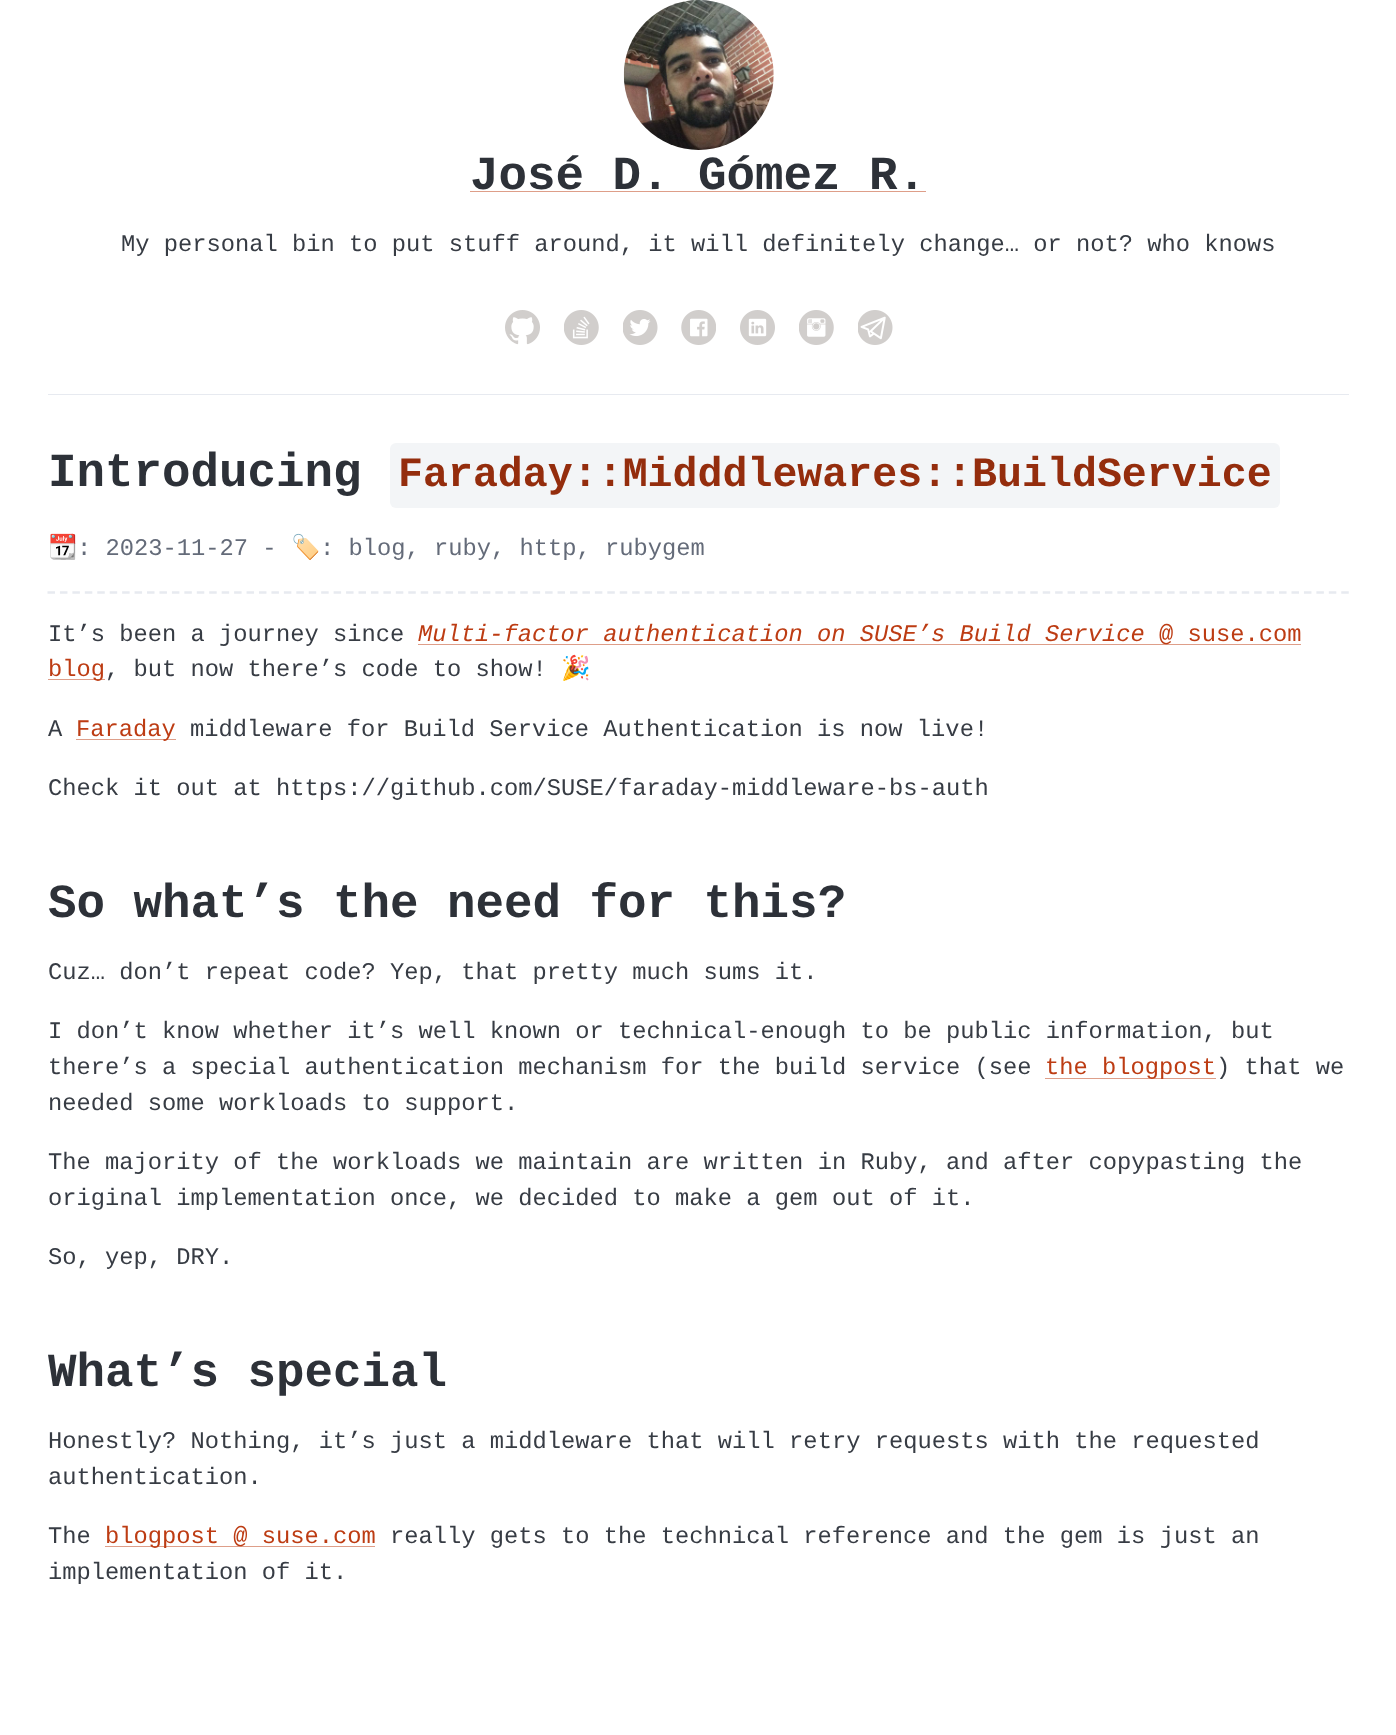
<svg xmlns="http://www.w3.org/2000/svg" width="1396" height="1735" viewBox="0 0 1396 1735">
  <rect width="100%" height="100%" fill="#fff"/>
  <image x="623" y="0" width="151" height="150" href="img/1.png"/>
  <path d="M470 191h456v1H470z" fill="#de9e89"/>
  <image x="505" y="310" width="35" height="35" href="img/2.png"/>
  <image x="564" y="310" width="35" height="35" href="img/3.png"/>
  <image x="623" y="310" width="35" height="35" href="img/4.png"/>
  <image x="681" y="310" width="35" height="35" href="img/5.png"/>
  <image x="740" y="310" width="35" height="35" href="img/6.png"/>
  <image x="799" y="310" width="35" height="35" href="img/7.png"/>
  <image x="858" y="310" width="35" height="35" href="img/8.png"/>
  <path d="M48 394h1301v1H48z" fill="#e7eaf0"/>
  <rect x="390" y="443" width="890" height="65" rx="6" fill="#f3f5f7"/>
  <path d="M47.5 592.5H1349" fill="none" stroke="#e7eaf0" stroke-width="2.5" stroke-dasharray="7.5 4.94"/>
  <path d="M418 644h883v1H418z" fill="#de9e89"/>
  <path d="M48 679h57v1H48z" fill="#de9e89"/>
  <path d="M76 739h100v1H76z" fill="#de9e89"/>
  <path d="M1045 1078h171v1H1045z" fill="#de9e89"/>
  <path d="M105 1546h270v1H105z" fill="#de9e89"/>
  <text x="470" y="189" font-family="Liberation Mono" font-size="47.5" font-weight="bold" fill="#2d3138">José D. Gómez R.</text>
  <text x="121" y="251" font-family="Liberation Mono" font-size="23.75" fill="#373c44">My personal bin to put stuff around, it will definitely change… or not? who knows</text>
  <text x="48" y="486" font-family="Liberation Mono" font-size="47.5" font-weight="bold" fill="#2d3138">Introducing</text>
  <text x="398" y="486" font-family="Liberation Mono" font-size="41.6" font-weight="bold" fill="#942d0d">Faraday::Midddlewares::BuildService</text>
  <text x="48" y="555" font-family="Noto Color Emoji" font-size="23.75" fill="#646b79">📆</text>
  <text x="77" y="555" font-family="Liberation Mono" font-size="23.75" fill="#646b79">: 2023-11-27 -</text>
  <text x="291" y="555" font-family="Noto Color Emoji" font-size="23.75" fill="#646b79">🏷</text>
  <text x="320" y="555" font-family="Liberation Mono" font-size="23.75" fill="#646b79">: blog, ruby, http, rubygem</text>
  <text x="48" y="641" font-family="Liberation Mono" font-size="23.75" fill="#373c44">It’s been a journey since</text>
  <text x="418" y="641" font-family="Liberation Mono" font-size="23.75" font-style="italic" fill="#bd3c13">Multi-factor authentication on SUSE’s Build Service</text>
  <g font-family="Liberation Mono" font-size="23.75" fill="#bd3c13">
    <text x="1159" y="641">@ suse.com</text>
    <text x="48" y="676">blog</text>
  </g>
  <text x="105" y="676" font-family="Liberation Mono" font-size="23.75" fill="#373c44">, but now there’s code to show!</text>
  <text x="561" y="676" font-family="Noto Color Emoji" font-size="23.75" fill="#373c44">🎉</text>
  <text x="48" y="736" font-family="Liberation Mono" font-size="23.75" fill="#373c44">A</text>
  <text x="76" y="736" font-family="Liberation Mono" font-size="23.75" fill="#bd3c13">Faraday</text>
  <g font-family="Liberation Mono" font-size="23.75" fill="#373c44">
    <text x="190" y="736">middleware for Build Service Authentication is now live!</text>
    <text x="48" y="795">Check it out at https://github.com/SUSE/faraday-middleware-bs-auth</text>
  </g>
  <text x="48" y="917" font-family="Liberation Mono" font-size="47.5" font-weight="bold" fill="#2d3138">So what’s the need for this?</text>
  <g font-family="Liberation Mono" font-size="23.75" fill="#373c44">
    <text x="48" y="979">Cuz… don’t repeat code? Yep, that pretty much sums it.</text>
    <text x="48" y="1038">I don’t know whether it’s well known or technical-enough to be public information, but</text>
    <text x="48" y="1074">there’s a special authentication mechanism for the build service (see</text>
  </g>
  <text x="1045" y="1074" font-family="Liberation Mono" font-size="23.75" fill="#bd3c13">the blogpost</text>
  <g font-family="Liberation Mono" font-size="23.75" fill="#373c44">
    <text x="1216" y="1074">) that we</text>
    <text x="48" y="1110">needed some workloads to support.</text>
    <text x="48" y="1169">The majority of the workloads we maintain are written in Ruby, and after copypasting the</text>
    <text x="48" y="1205">original implementation once, we decided to make a gem out of it.</text>
    <text x="48" y="1264">So, yep, DRY.</text>
  </g>
  <text x="48" y="1386" font-family="Liberation Mono" font-size="47.5" font-weight="bold" fill="#2d3138">What’s special</text>
  <g font-family="Liberation Mono" font-size="23.75" fill="#373c44">
    <text x="48" y="1448">Honestly? Nothing, it’s just a middleware that will retry requests with the requested</text>
    <text x="48" y="1484">authentication.</text>
    <text x="48" y="1543">The</text>
  </g>
  <text x="105" y="1543" font-family="Liberation Mono" font-size="23.75" fill="#bd3c13">blogpost @ suse.com</text>
  <g font-family="Liberation Mono" font-size="23.75" fill="#373c44">
    <text x="390" y="1543">really gets to the technical reference and the gem is just an</text>
    <text x="48" y="1579">implementation of it.</text>
  </g>
</svg>
